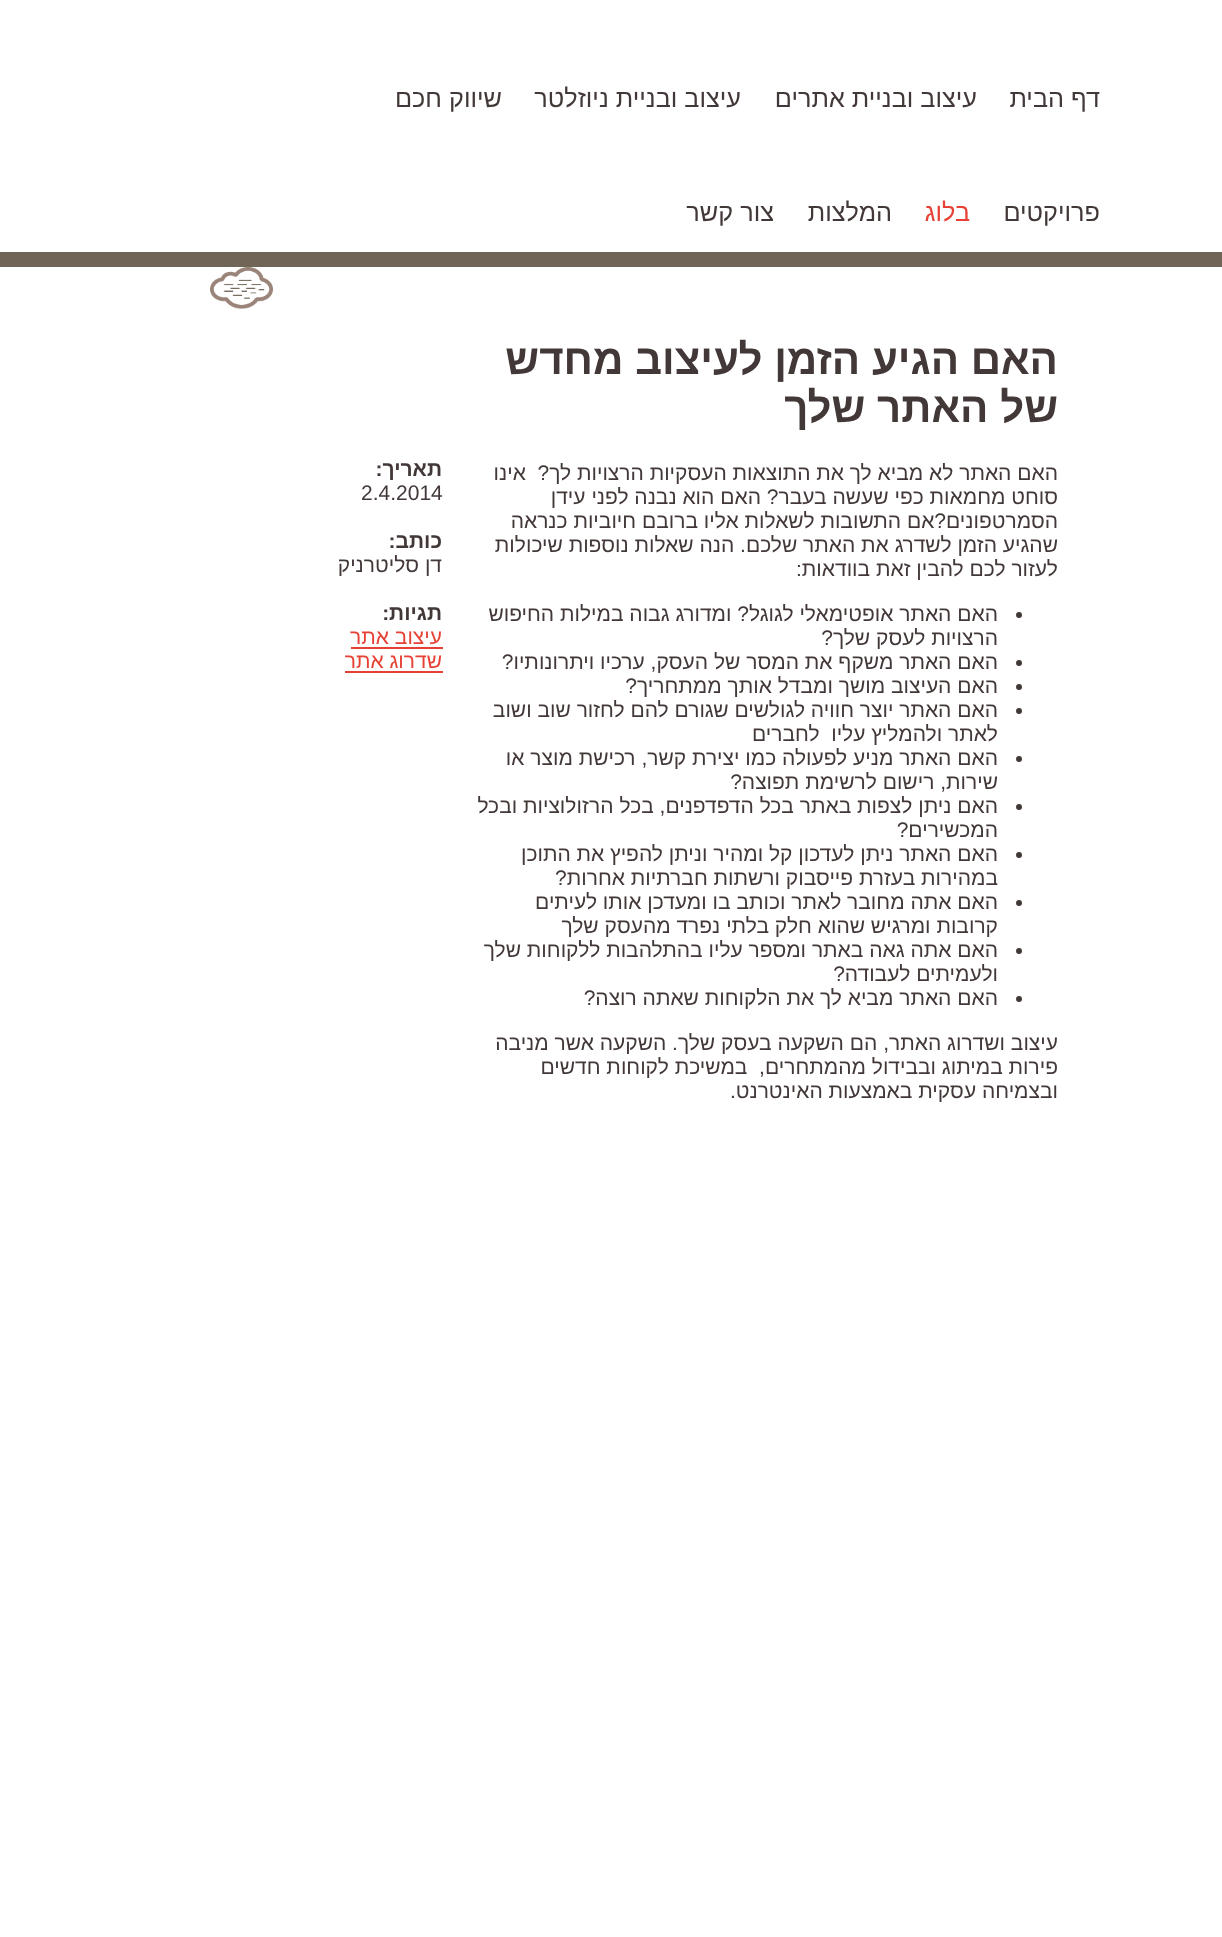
<svg xmlns="http://www.w3.org/2000/svg" width="1222" height="1937" viewBox="0 0 1222 1937">
  <rect width="100%" height="100%" fill="#fff"/>
  <path d="M0 252h1222v15H0z" fill="#716558"/>
  <image x="210" y="267" width="63" height="42" href="img/1.png"/>
  <circle cx="1019" cy="615" r="3" fill="#433838"/>
  <circle cx="1019" cy="663" r="3" fill="#433838"/>
  <circle cx="1019" cy="687" r="3" fill="#433838"/>
  <circle cx="1019" cy="711" r="3" fill="#433838"/>
  <circle cx="1019" cy="759" r="3" fill="#433838"/>
  <circle cx="1019" cy="807" r="3" fill="#433838"/>
  <circle cx="1019" cy="855" r="3" fill="#433838"/>
  <circle cx="1019" cy="903" r="3" fill="#433838"/>
  <circle cx="1019" cy="951" r="3" fill="#433838"/>
  <circle cx="1019" cy="999" r="3" fill="#433838"/>
  <path d="M351 647h92v2H351z" fill="#e74135"/>
  <path d="M345 671h98v2H345z" fill="#e74135"/>
  <g font-family="Liberation Sans" font-size="25.25" direction="rtl" fill="#433838">
    <text x="1100" y="107">דף הבית</text>
    <text x="977" y="107">עיצוב ובניית אתרים</text>
    <text x="741" y="107">עיצוב ובניית ניוזלטר</text>
    <text x="502" y="107">שיווק חכם</text>
    <text x="1100" y="221">פרויקטים</text>
  </g>
  <text x="970" y="221" font-family="Liberation Sans" font-size="25.25" direction="rtl" fill="#e74135">בלוג</text>
  <g font-family="Liberation Sans" font-size="25.25" direction="rtl" fill="#433838">
    <text x="892" y="221">המלצות</text>
    <text x="774" y="221">צור קשר</text>
  </g>
  <g font-family="Liberation Sans" font-size="42" font-weight="bold" direction="rtl" fill="#433838">
    <text x="1058" y="374">האם הגיע הזמן לעיצוב מחדש</text>
    <text x="1058" y="422">של האתר שלך</text>
  </g>
  <g font-family="Liberation Sans" font-size="21" direction="rtl" fill="#433838">
    <text x="1058" y="480" xml:space="preserve">האם האתר לא מביא לך את התוצאות העסקיות הרצויות לך?  אינו</text>
    <text x="1058" y="504">סוחט מחמאות כפי שעשה בעבר? האם הוא נבנה לפני עידן</text>
    <text x="1058" y="528">הסמרטפונים?אם התשובות לשאלות אליו ברובם חיוביות כנראה</text>
    <text x="1058" y="552">שהגיע הזמן לשדרג את האתר שלכם. הנה שאלות נוספות שיכולות</text>
    <text x="1058" y="576">לעזור לכם להבין זאת בוודאות:</text>
    <text x="998" y="621">האם האתר אופטימאלי לגוגל? ומדורג גבוה במילות החיפוש</text>
    <text x="998" y="645">הרצויות לעסק שלך?</text>
    <text x="998" y="669">האם האתר משקף את המסר של העסק, ערכיו ויתרונותיו?</text>
    <text x="998" y="693">האם העיצוב מושך ומבדל אותך ממתחריך?</text>
    <text x="998" y="717">האם האתר יוצר חוויה לגולשים שגורם להם לחזור שוב ושוב</text>
    <text x="998" y="741" xml:space="preserve">לאתר ולהמליץ עליו  לחברים</text>
    <text x="998" y="765">האם האתר מניע לפעולה כמו יצירת קשר, רכישת מוצר או</text>
    <text x="998" y="789">שירות, רישום לרשימת תפוצה?</text>
    <text x="998" y="813">האם ניתן לצפות באתר בכל הדפדפנים, בכל הרזולוציות ובכל</text>
    <text x="998" y="837">המכשירים?</text>
    <text x="998" y="861">האם האתר ניתן לעדכון קל ומהיר וניתן להפיץ את התוכן</text>
    <text x="998" y="885">במהירות בעזרת פייסבוק ורשתות חברתיות אחרות?</text>
    <text x="998" y="909">האם אתה מחובר לאתר וכותב בו ומעדכן אותו לעיתים</text>
    <text x="998" y="933">קרובות ומרגיש שהוא חלק בלתי נפרד מהעסק שלך</text>
    <text x="998" y="957">האם אתה גאה באתר ומספר עליו בהתלהבות ללקוחות שלך</text>
    <text x="998" y="981">ולעמיתים לעבודה?</text>
    <text x="998" y="1005">האם האתר מביא לך את הלקוחות שאתה רוצה?</text>
    <text x="1058" y="1050">עיצוב ושדרוג האתר, הם השקעה בעסק שלך. השקעה אשר מניבה</text>
    <text x="1058" y="1074" xml:space="preserve">פירות במיתוג ובבידול מהמתחרים,  במשיכת לקוחות חדשים</text>
    <text x="1058" y="1098">ובצמיחה עסקית באמצעות האינטרנט.</text>
  </g>
  <text x="442" y="476" font-family="Liberation Sans" font-size="21" font-weight="bold" direction="rtl" fill="#433838">תאריך:</text>
  <text x="361" y="500" font-family="Liberation Sans" font-size="21" fill="#433838">2.4.2014</text>
  <text x="442" y="548" font-family="Liberation Sans" font-size="21" font-weight="bold" direction="rtl" fill="#433838">כותב:</text>
  <text x="442" y="572" font-family="Liberation Sans" font-size="21" direction="rtl" fill="#433838">דן סליטרניק</text>
  <text x="442" y="620" font-family="Liberation Sans" font-size="21" font-weight="bold" direction="rtl" fill="#433838">תגיות:</text>
  <g font-family="Liberation Sans" font-size="21" direction="rtl" fill="#e74135">
    <text x="442" y="644">עיצוב אתר</text>
    <text x="442" y="668">שדרוג אתר</text>
  </g>
</svg>
